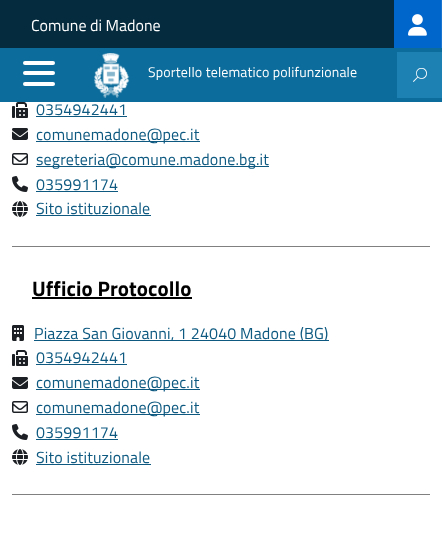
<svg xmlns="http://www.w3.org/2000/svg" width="442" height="537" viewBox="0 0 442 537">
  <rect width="100%" height="100%" fill="#fff"/>
  <path d="M0 0h394v48H0z" fill="#052b3e"/>
  <path d="M394 0h47v48H394z" fill="#06c"/>
  <path d="M441 0h1v48H441z" fill="#1a75d1"/>
  <image x="408" y="14" width="19" height="22" href="img/1.png"/>
  <path d="M0 48h442v54H0z" fill="#0c6c9b"/>
  <rect x="23" y="71" width="32" height="4" rx="2" fill="#fff"/>
  <rect x="23" y="61" width="32" height="4" rx="2" fill="#fff"/>
  <rect x="23" y="82" width="32" height="4" rx="2" fill="#fff"/>
  <image x="93" y="53" width="37" height="45" href="img/2.png"/>
  <path d="M397 52h45v46H397z" fill="#1e81b3"/>
  <path d="M12 246h418v1H12z" fill="#808080"/>
  <image x="12" y="102" width="16" height="16" href="img/3.png"/>
  <path d="M36 116h91v1H36z" fill="#0d5980"/>
  <image x="12" y="128" width="16" height="12" href="img/4.png"/>
  <path d="M36 141h164v1H36z" fill="#0d5980"/>
  <image x="12" y="153" width="16" height="12" href="img/5.png"/>
  <path d="M36 166h233v1H36z" fill="#0d5980"/>
  <image x="12" y="176" width="16" height="16" href="img/6.png"/>
  <path d="M36 191h82v1H36z" fill="#0d5980"/>
  <image x="12" y="201" width="16" height="16" href="img/7.png"/>
  <path d="M36 215h115v1H36z" fill="#0d5980"/>
  <path d="M12 494h418v1H12z" fill="#808080"/>
  <path d="M32 297h160v2H32z" fill="#000"/>
  <image x="12" y="325" width="12" height="16" href="img/8.png"/>
  <path d="M34 340h295v1H34z" fill="#0d5980"/>
  <image x="12" y="350" width="16" height="16" href="img/3.png"/>
  <path d="M36 364h91v1H36z" fill="#0d5980"/>
  <image x="12" y="377" width="16" height="12" href="img/4.png"/>
  <path d="M36 389h164v1H36z" fill="#0d5980"/>
  <image x="12" y="401" width="16" height="12" href="img/5.png"/>
  <path d="M36 414h164v1H36z" fill="#0d5980"/>
  <image x="12" y="424" width="16" height="16" href="img/6.png"/>
  <path d="M36 439h82v1H36z" fill="#0d5980"/>
  <image x="12" y="449" width="16" height="16" href="img/7.png"/>
  <path d="M36 464h115v1H36z" fill="#0d5980"/>
  <text x="31" y="31" font-family="Titillium Web" font-size="16" fill="#fff">Comune di Madone</text>
  <text x="148" y="77" font-family="Titillium Web" font-size="14" letter-spacing="0.15" fill="#fff">Sportello telematico polifunzionale</text>
  <text x="413" y="81" font-family="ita" font-size="14" fill="#fff">🔍</text>
  <g font-family="Titillium Web" font-size="16" letter-spacing="0.15" fill="#0d5980">
    <text x="36" y="115">0354942441</text>
    <text x="36" y="140">comunemadone@pec.it</text>
    <text x="36" y="165">segreteria@comune.madone.bg.it</text>
    <text x="36" y="190">035991174</text>
    <text x="36" y="214">Sito istituzionale</text>
  </g>
  <text x="32" y="296" font-family="Titillium Web" font-size="21" font-weight="bold" letter-spacing="0.1" fill="#000">Ufficio Protocollo</text>
  <g font-family="Titillium Web" font-size="16" letter-spacing="0.15" fill="#0d5980">
    <text x="34" y="339">Piazza San Giovanni, 1 24040 Madone (BG)</text>
    <text x="36" y="363">0354942441</text>
    <text x="36" y="388">comunemadone@pec.it</text>
    <text x="36" y="413">comunemadone@pec.it</text>
    <text x="36" y="438">035991174</text>
    <text x="36" y="463">Sito istituzionale</text>
  </g>
</svg>
